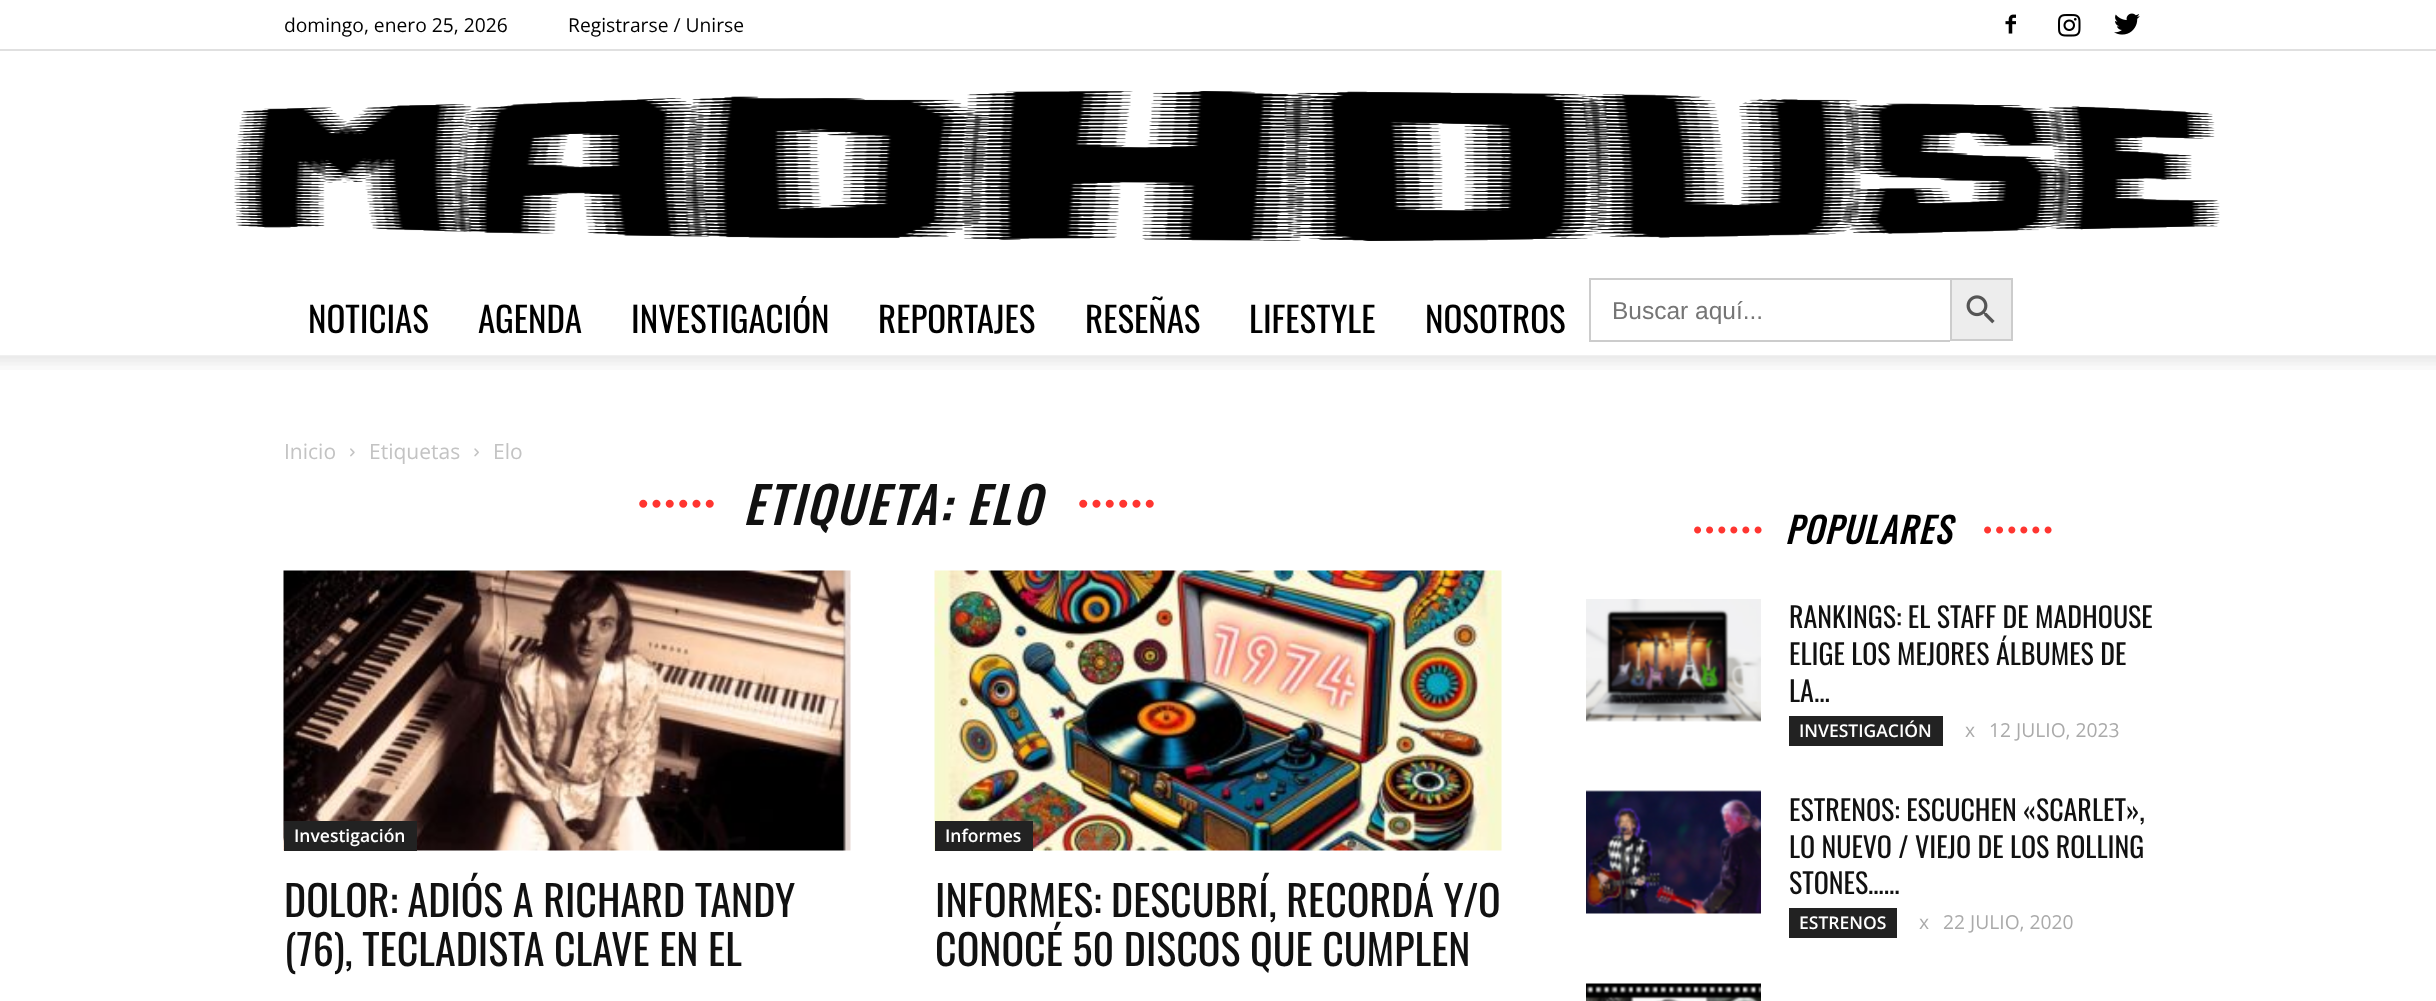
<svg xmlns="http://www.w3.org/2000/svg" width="2436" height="1001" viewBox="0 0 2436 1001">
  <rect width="100%" height="100%" fill="#fff"/>
  <path d="M0 49h2436v2H0z" fill="#e0e0e0"/>
  <image x="2005" y="14" width="11" height="20" href="img/1.png"/>
  <image x="2058" y="14" width="23" height="23" href="img/2.png"/>
  <image x="2114" y="13" width="26" height="22" href="img/3.png"/>
  <image x="234" y="91" width="1986" height="150" href="img/4.png"/>
  <path d="M1589 278h361v2H1589z" fill="#ccc"/>
  <path d="M1589 340h361v2H1589z" fill="#ccc"/>
  <path d="M1589 278h2v63H1589z" fill="#ccc"/>
  <path d="M1951 279h61v61H1951z" fill="#ededed" stroke="#ccc" stroke-width="2"/>
  <image x="1966" y="295" width="29" height="29" href="img/5.png"/>
  <image x="0" y="355" width="2436" height="15" href="img/6.png"/>
  <image x="350" y="448" width="5" height="9" href="img/7.png"/>
  <image x="474" y="448" width="5" height="9" href="img/8.png"/>
  <image x="283" y="570" width="568" height="281" href="img/9.png"/>
  <path d="M284 821h133v30H284z" fill="#222"/>
  <image x="934" y="570" width="568" height="281" href="img/10.png"/>
  <path d="M935 821h98v30H935z" fill="#222"/>
  <image x="1586" y="599" width="175" height="123" href="img/11.png"/>
  <path d="M1789 716h154v30H1789z" fill="#222"/>
  <image x="1586" y="790" width="175" height="124" href="img/12.png"/>
  <path d="M1789 908h108v30H1789z" fill="#222"/>
  <image x="1586" y="983" width="175" height="18" href="img/13.png"/>
  <g font-family="Open Sans" font-size="19.25" fill="#000">
    <text x="284" y="32">domingo, enero 25, 2026</text>
    <text x="568" y="32">Registrarse / Unirse</text>
  </g>
  <g font-family="Oswald" font-size="35" fill="#000">
    <text x="308" y="333">NOTICIAS</text>
    <text x="478" y="333">AGENDA</text>
    <text x="631" y="333">INVESTIGACIÓN</text>
    <text x="878" y="333">REPORTAJES</text>
    <text x="1085" y="333">RESEÑAS</text>
    <text x="1249" y="333">LIFESTYLE</text>
    <text x="1425" y="333">NOSOTROS</text>
  </g>
  <text x="1612" y="319" font-family="Liberation Sans" font-size="24.5" fill="#757575">Buscar aquí...</text>
  <g font-family="Open Sans" font-size="21" fill="#c3c3c3">
    <text x="284" y="459">Inicio</text>
    <text x="369" y="459">Etiquetas</text>
    <text x="493" y="459">Elo</text>
  </g>
  <text x="638" y="513" font-family="Liberation Sans" font-size="28" font-weight="bold" font-style="italic" letter-spacing="3.5" fill="#ff3530">••••••</text>
  <text x="743" y="525" font-family="Oswald" font-size="49" font-weight="bold" font-style="italic" letter-spacing="3.5" fill="#111">ETIQUETA: ELO</text>
  <text x="1078" y="513" font-family="Liberation Sans" font-size="28" font-weight="bold" font-style="italic" letter-spacing="3.5" fill="#ff3530">••••••</text>
  <text x="294" y="842" font-family="Open Sans" font-size="17.5" font-weight="600" fill="#fff">Investigación</text>
  <g font-family="Oswald" font-size="42" fill="#111">
    <text x="284" y="917">DOLOR: ADIÓS A RICHARD TANDY</text>
    <text x="284" y="966">(76), TECLADISTA CLAVE EN EL</text>
  </g>
  <text x="945" y="842" font-family="Open Sans" font-size="17.5" font-weight="600" fill="#fff">Informes</text>
  <g font-family="Oswald" font-size="42" fill="#111">
    <text x="935" y="917">INFORMES: DESCUBRÍ, RECORDÁ Y/O</text>
    <text x="935" y="966">CONOCÉ 50 DISCOS QUE CUMPLEN</text>
  </g>
  <text x="1693" y="538" font-family="Liberation Sans" font-size="24.5" font-weight="bold" font-style="italic" letter-spacing="3.5" fill="#ff3530">••••••</text>
  <text x="1785" y="544" font-family="Oswald" font-size="35" font-weight="bold" font-style="italic" letter-spacing="1.75" fill="#000">POPULARES</text>
  <text x="1983" y="538" font-family="Liberation Sans" font-size="24.5" font-weight="bold" font-style="italic" letter-spacing="3.5" fill="#ff3530">••••••</text>
  <g font-family="Oswald" font-size="28" fill="#111">
    <text x="1789" y="628">RANKINGS: EL STAFF DE MADHOUSE</text>
    <text x="1789" y="665">ELIGE LOS MEJORES ÁLBUMES DE</text>
    <text x="1789" y="702">LA...</text>
  </g>
  <text x="1799" y="737" font-family="Open Sans" font-size="17.5" font-weight="600" fill="#fff">INVESTIGACIÓN</text>
  <g font-family="Open Sans" font-size="19.25" fill="#aaa">
    <text x="1965" y="737">x</text>
    <text x="1989" y="737">12 JULIO, 2023</text>
  </g>
  <g font-family="Oswald" font-size="28" fill="#111">
    <text x="1789" y="821">ESTRENOS: ESCUCHEN «SCARLET»,</text>
    <text x="1789" y="858">LO NUEVO / VIEJO DE LOS ROLLING</text>
    <text x="1789" y="894">STONES…...</text>
  </g>
  <text x="1799" y="929" font-family="Open Sans" font-size="17.5" font-weight="600" fill="#fff">ESTRENOS</text>
  <g font-family="Open Sans" font-size="19.25" fill="#aaa">
    <text x="1919" y="929">x</text>
    <text x="1943" y="929">22 JULIO, 2020</text>
  </g>
</svg>
